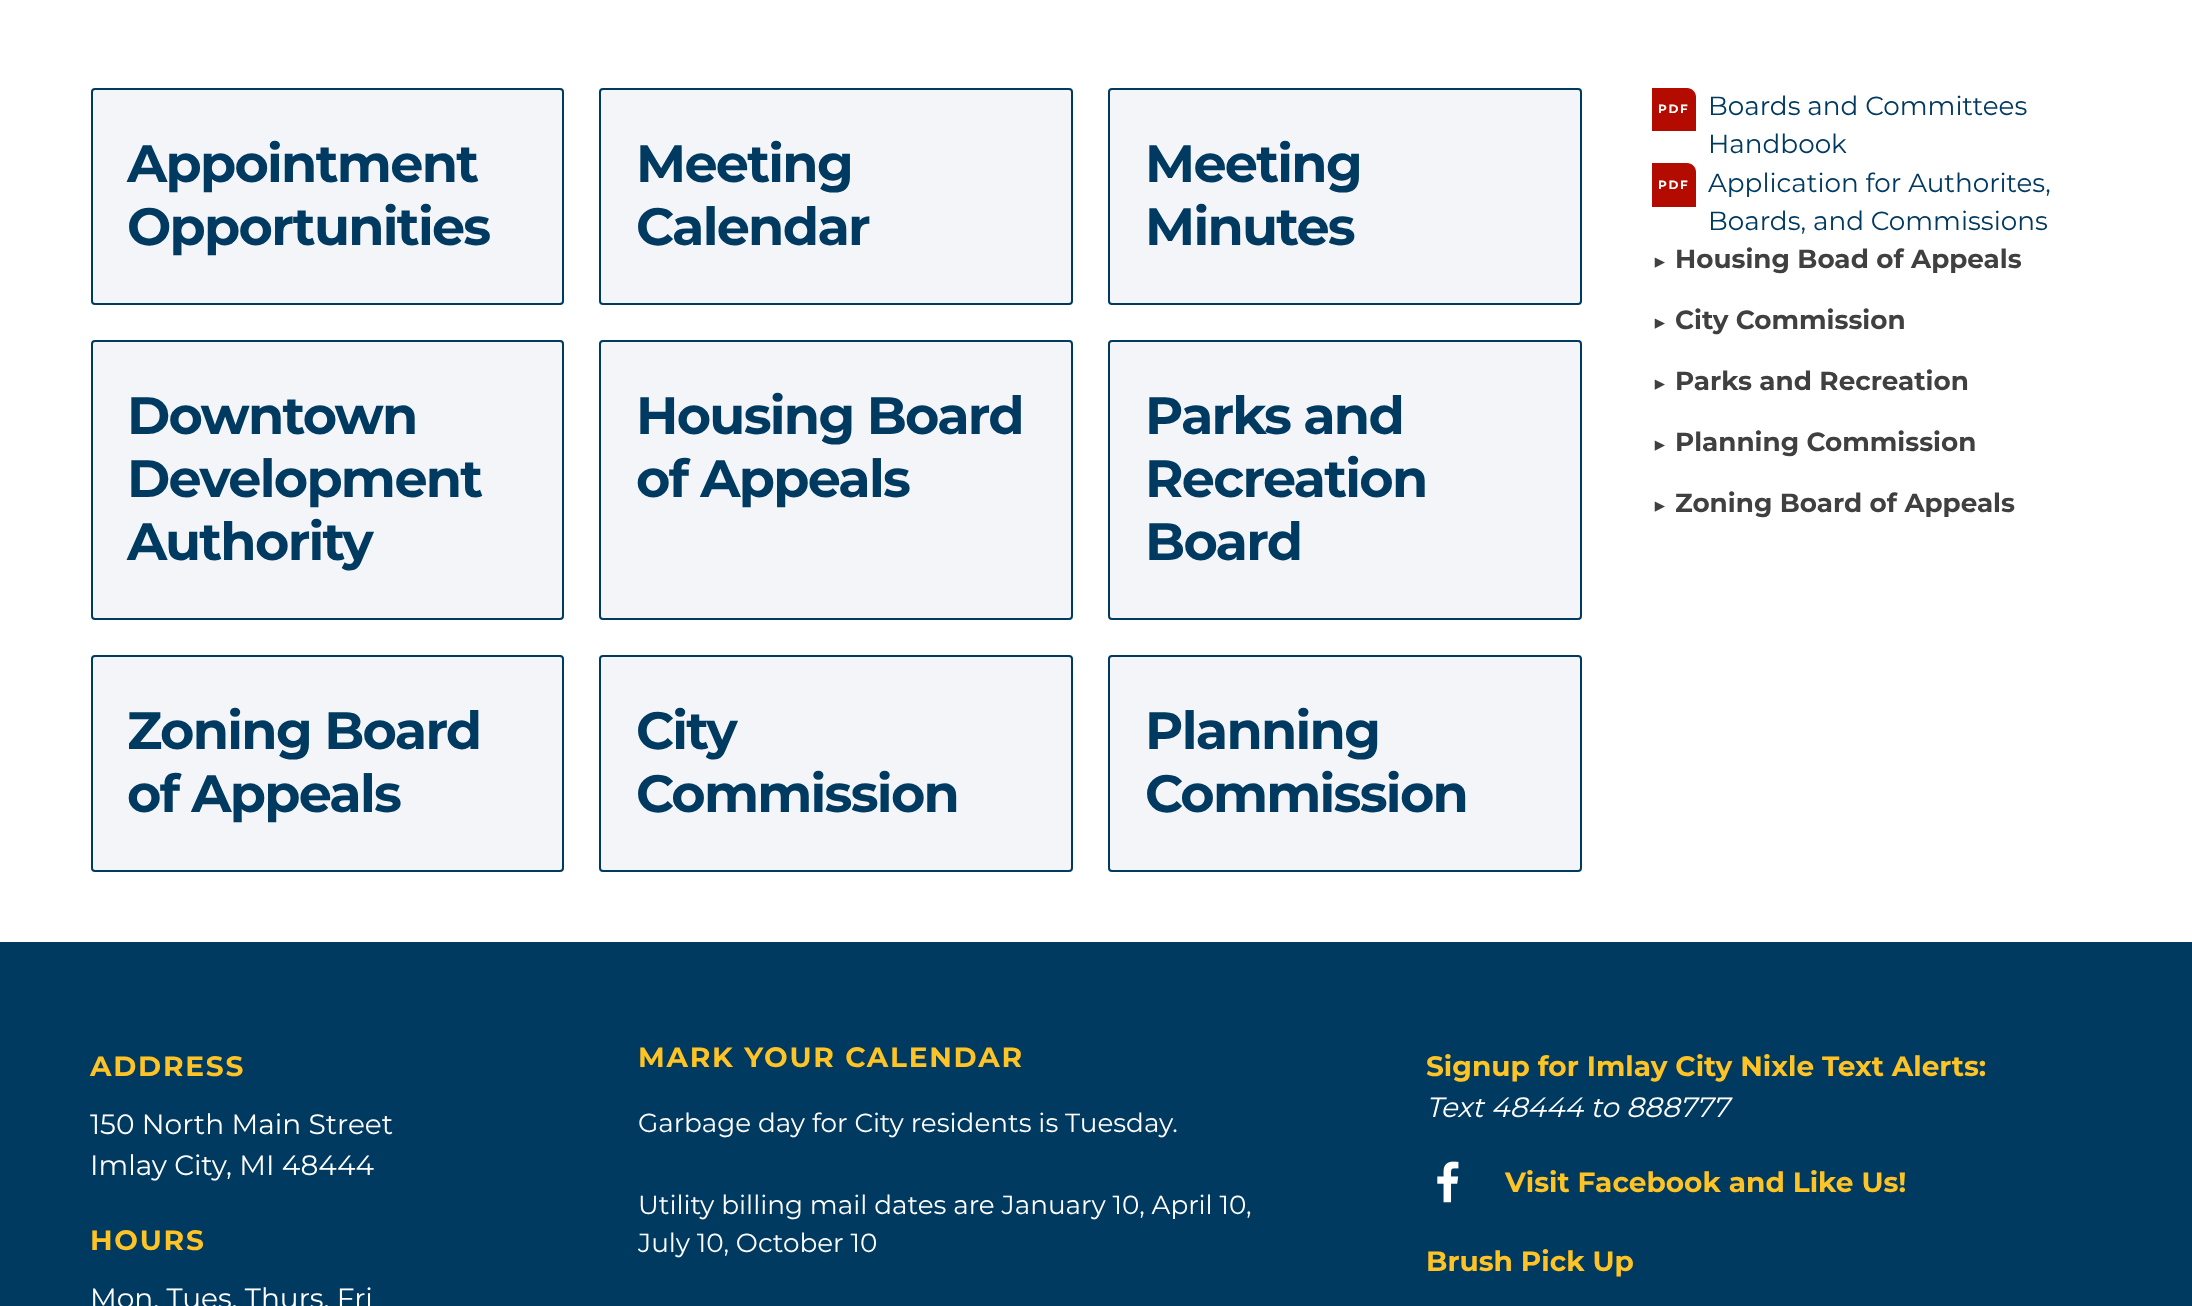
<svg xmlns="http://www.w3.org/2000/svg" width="2192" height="1306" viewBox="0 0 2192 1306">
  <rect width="100%" height="100%" fill="#fff"/>
  <rect x="92" y="89" width="471" height="215" rx="3" fill="#f3f5f8" stroke="#003a60" stroke-width="2"/>
  <rect x="600" y="89" width="472" height="215" rx="3" fill="#f3f5f8" stroke="#003a60" stroke-width="2"/>
  <rect x="1109" y="89" width="472" height="215" rx="3" fill="#f3f5f8" stroke="#003a60" stroke-width="2"/>
  <rect x="92" y="341" width="471" height="278" rx="3" fill="#f3f5f8" stroke="#003a60" stroke-width="2"/>
  <rect x="600" y="341" width="472" height="278" rx="3" fill="#f3f5f8" stroke="#003a60" stroke-width="2"/>
  <rect x="1109" y="341" width="472" height="278" rx="3" fill="#f3f5f8" stroke="#003a60" stroke-width="2"/>
  <rect x="92" y="656" width="471" height="215" rx="3" fill="#f3f5f8" stroke="#003a60" stroke-width="2"/>
  <rect x="600" y="656" width="472" height="215" rx="3" fill="#f3f5f8" stroke="#003a60" stroke-width="2"/>
  <rect x="1109" y="656" width="472" height="215" rx="3" fill="#f3f5f8" stroke="#003a60" stroke-width="2"/>
  <path d="M1652 88H1687C1692 88 1696 92 1696 97V131H1652Z" fill="#b30b00"/>
  <path d="M1652 163H1687C1692 163 1696 167 1696 172V207H1652Z" fill="#b30b00"/>
  <path d="M0 942h2192v364H0z" fill="#003a60"/>
  <image x="1437" y="1161" width="22" height="42" href="img/1.png"/>
  <g font-family="Montserrat" font-size="52.5" font-weight="bold" letter-spacing="-1.75" fill="#003a60">
    <text x="127" y="182">Appointment</text>
    <text x="127" y="245">Opportunities</text>
    <text x="636" y="182">Meeting</text>
    <text x="636" y="245">Calendar</text>
    <text x="1145" y="182">Meeting</text>
    <text x="1145" y="245">Minutes</text>
    <text x="127" y="434">Downtown</text>
    <text x="127" y="497">Development</text>
    <text x="127" y="560">Authority</text>
    <text x="636" y="434">Housing Board</text>
    <text x="636" y="497">of Appeals</text>
    <text x="1145" y="434">Parks and</text>
    <text x="1145" y="497">Recreation</text>
    <text x="1145" y="560">Board</text>
    <text x="127" y="749">Zoning Board</text>
    <text x="127" y="812">of Appeals</text>
    <text x="636" y="749">City</text>
    <text x="636" y="812">Commission</text>
    <text x="1145" y="749">Planning</text>
    <text x="1145" y="812">Commission</text>
  </g>
  <text x="1658" y="113" font-family="Montserrat" font-size="12" font-weight="bold" letter-spacing="1.75" fill="#fff">PDF</text>
  <g font-family="Montserrat" font-size="26.25" fill="#003a60">
    <text x="1708" y="115">Boards and Committees</text>
    <text x="1708" y="153">Handbook</text>
  </g>
  <text x="1658" y="189" font-family="Montserrat" font-size="12" font-weight="bold" letter-spacing="1.75" fill="#fff">PDF</text>
  <g font-family="Montserrat" font-size="26.25" fill="#003a60">
    <text x="1708" y="192">Application for Authorites,</text>
    <text x="1708" y="230">Boards, and Commissions</text>
  </g>
  <text x="1652" y="269" font-family="'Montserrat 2'" font-size="24" font-weight="bold" fill="#404040">▶</text>
  <text x="1675" y="268" font-family="Montserrat" font-size="26.25" font-weight="bold" fill="#404040">Housing Boad of Appeals</text>
  <text x="1652" y="330" font-family="'Montserrat 2'" font-size="24" font-weight="bold" fill="#404040">▶</text>
  <text x="1675" y="329" font-family="Montserrat" font-size="26.25" font-weight="bold" fill="#404040">City Commission</text>
  <text x="1652" y="391" font-family="'Montserrat 2'" font-size="24" font-weight="bold" fill="#404040">▶</text>
  <text x="1675" y="390" font-family="Montserrat" font-size="26.25" font-weight="bold" fill="#404040">Parks and Recreation</text>
  <text x="1652" y="452" font-family="'Montserrat 2'" font-size="24" font-weight="bold" fill="#404040">▶</text>
  <text x="1675" y="451" font-family="Montserrat" font-size="26.25" font-weight="bold" fill="#404040">Planning Commission</text>
  <text x="1652" y="513" font-family="'Montserrat 2'" font-size="24" font-weight="bold" fill="#404040">▶</text>
  <text x="1675" y="512" font-family="Montserrat" font-size="26.25" font-weight="bold" fill="#404040">Zoning Board of Appeals</text>
  <text x="90" y="1076" font-family="Montserrat" font-size="28" font-weight="bold" letter-spacing="1.75" fill="#fec324">ADDRESS</text>
  <g font-family="Montserrat" font-size="28" fill="#fff">
    <text x="90" y="1134">150 North Main Street</text>
    <text x="90" y="1175">Imlay City, MI 48444</text>
  </g>
  <text x="90" y="1250" font-family="Montserrat" font-size="28" font-weight="bold" letter-spacing="1.75" fill="#fec324">HOURS</text>
  <text x="90" y="1308" font-family="Montserrat" font-size="28" fill="#fff">Mon, Tues, Thurs, Fri</text>
  <text x="638" y="1067" font-family="Montserrat" font-size="28" font-weight="bold" letter-spacing="1.75" fill="#fec324">MARK YOUR CALENDAR</text>
  <g font-family="Montserrat" font-size="26.25" fill="#fff">
    <text x="638" y="1132">Garbage day for City residents is Tuesday.</text>
    <text x="638" y="1214">Utility billing mail dates are January 10, April 10,</text>
    <text x="638" y="1252">July 10, October 10</text>
  </g>
  <text x="1426" y="1076" font-family="Montserrat" font-size="28" font-weight="bold" fill="#fec324">Signup for Imlay City Nixle Text Alerts:</text>
  <text x="1426" y="1117" font-family="Montserrat" font-size="28" font-style="italic" fill="#fff">Text 48444 to 888777</text>
  <g font-family="Montserrat" font-size="28" font-weight="bold" fill="#fec324">
    <text x="1505" y="1192">Visit Facebook and Like Us!</text>
    <text x="1426" y="1271">Brush Pick Up</text>
  </g>
</svg>
